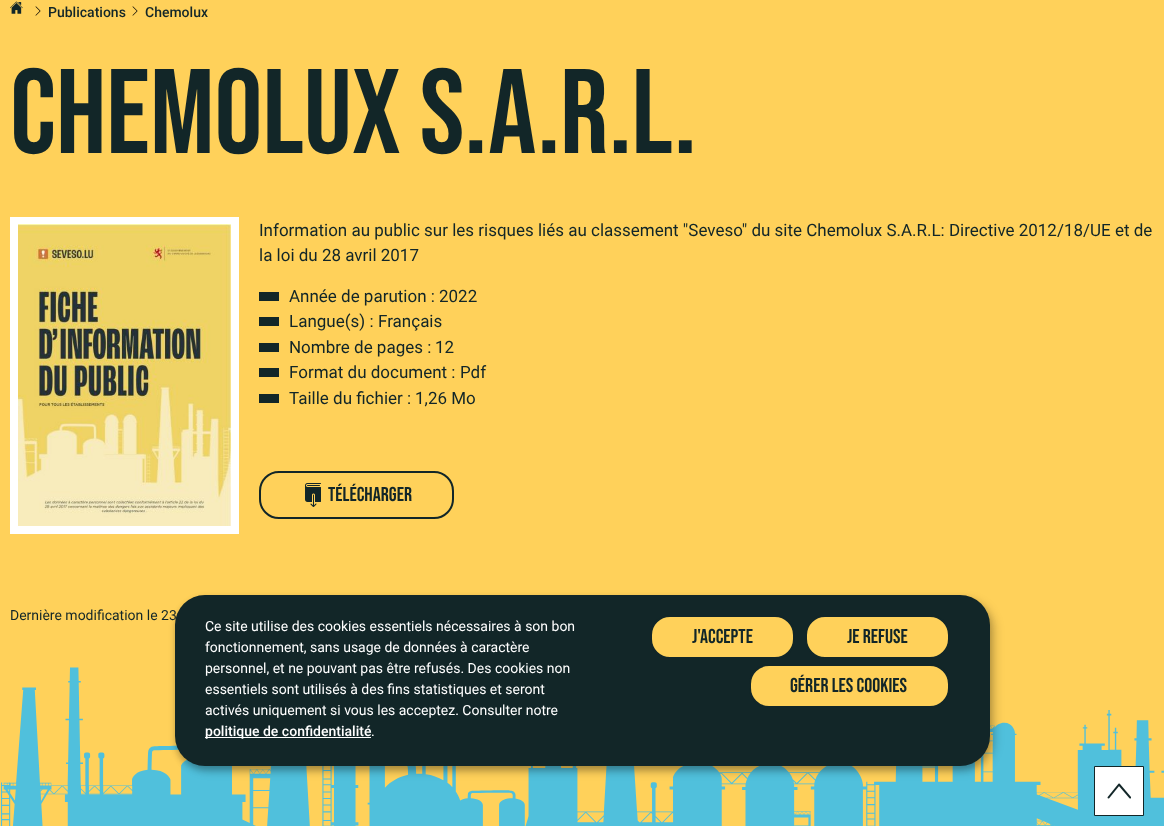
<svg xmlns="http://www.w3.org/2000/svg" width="1164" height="826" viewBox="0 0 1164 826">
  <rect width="100%" height="100%" fill="#ffd15a"/>
  <image x="10" y="1" width="13" height="13" href="img/1.png"/>
  <image x="35" y="6" width="6" height="10" href="img/2.png"/>
  <image x="132" y="6" width="6" height="10" href="img/2.png"/>
  <path d="M10 217h229v317H10z" fill="#fff"/>
  <image x="18" y="224" width="213" height="302" href="img/3.png"/>
  <path d="M259 292h20v9H259z" fill="#122628"/>
  <path d="M259 317h20v9H259z" fill="#122628"/>
  <path d="M259 343h20v9H259z" fill="#122628"/>
  <path d="M259 368h20v9H259z" fill="#122628"/>
  <path d="M259 394h20v9H259z" fill="#122628"/>
  <rect x="260" y="472" width="193" height="46" rx="19" fill="none" stroke="#122628" stroke-width="2"/>
  <image x="305" y="483" width="16" height="24" href="img/4.png"/>
  <image x="1" y="667" width="1163" height="159" href="img/5.png"/>
  <path d="M1094.5 766.5h49v49H1094.5z" fill="#fff" stroke="#122628"/>
  <image x="1107" y="783" width="24" height="16" href="img/6.png"/>
  <rect x="180" y="600" width="815" height="171" rx="30" fill="#00000030" filter="blur(5px)"/>
  <rect x="175" y="599" width="815" height="171" rx="30" fill="#00000033" filter="blur(3px)"/>
  <rect x="175" y="595" width="815" height="171" rx="30" fill="#122628"/>
  <path d="M205 737h166v1H205z" fill="#fff"/>
  <rect x="651" y="616" width="143" height="42" rx="19" fill="#ffd15a" stroke="#122628" stroke-width="2"/>
  <rect x="806" y="616" width="143" height="42" rx="19" fill="#ffd15a" stroke="#122628" stroke-width="2"/>
  <rect x="750" y="665" width="199" height="42" rx="19" fill="#ffd15a" stroke="#122628" stroke-width="2"/>
  <g font-family="Roboto" font-size="14" font-weight="500" fill="#122628">
    <text x="48" y="17">Publications</text>
    <text x="145" y="17">Chemolux</text>
  </g>
  <text x="10" y="153" font-family="Bebas Neue" font-size="120" fill="#122628">Chemolux S.A.R.L.</text>
  <g font-family="Roboto" font-size="17" fill="#122628">
    <text x="259" y="236">Information au public sur les risques liés au classement "Seveso" du site Chemolux S.A.R.L: Directive 2012/18/UE et de</text>
    <text x="259" y="261">la loi du 28 avril 2017</text>
    <text x="289" y="302">Année de parution :</text>
    <text x="439" y="302">2022</text>
    <text x="289" y="327">Langue(s) :</text>
    <text x="378" y="327">Français</text>
    <text x="289" y="353">Nombre de pages :</text>
    <text x="435" y="353">12</text>
    <text x="289" y="378">Format du document :</text>
    <text x="460" y="378">Pdf</text>
    <text x="289" y="404">Taille du fichier :</text>
    <text x="415" y="404">1,26 Mo</text>
  </g>
  <text x="328" y="501" font-family="Bebas Neue" font-size="20" fill="#122628">Télécharger</text>
  <text x="10" y="620" font-family="Roboto" font-size="14" fill="#122628">Dernière modification le 23</text>
  <g font-family="Roboto" font-size="14" fill="#fff">
    <text x="205" y="631">Ce site utilise des cookies essentiels nécessaires à son bon</text>
    <text x="205" y="652">fonctionnement, sans usage de données à caractère</text>
    <text x="205" y="673">personnel, et ne pouvant pas être refusés. Des cookies non</text>
    <text x="205" y="694">essentiels sont utilisés à des fins statistiques et seront</text>
    <text x="205" y="715">activés uniquement si vous les acceptez. Consulter notre</text>
  </g>
  <text x="205" y="736" font-family="Roboto" font-size="14" font-weight="500" fill="#fff">politique de confidentialité</text>
  <text x="371" y="736" font-family="Roboto" font-size="14" fill="#fff">.</text>
  <g font-family="Bebas Neue" font-size="20" fill="#122628">
    <text x="692" y="643">J'accepte</text>
    <text x="847" y="643">Je refuse</text>
    <text x="790" y="692">Gérer les cookies</text>
  </g>
</svg>
